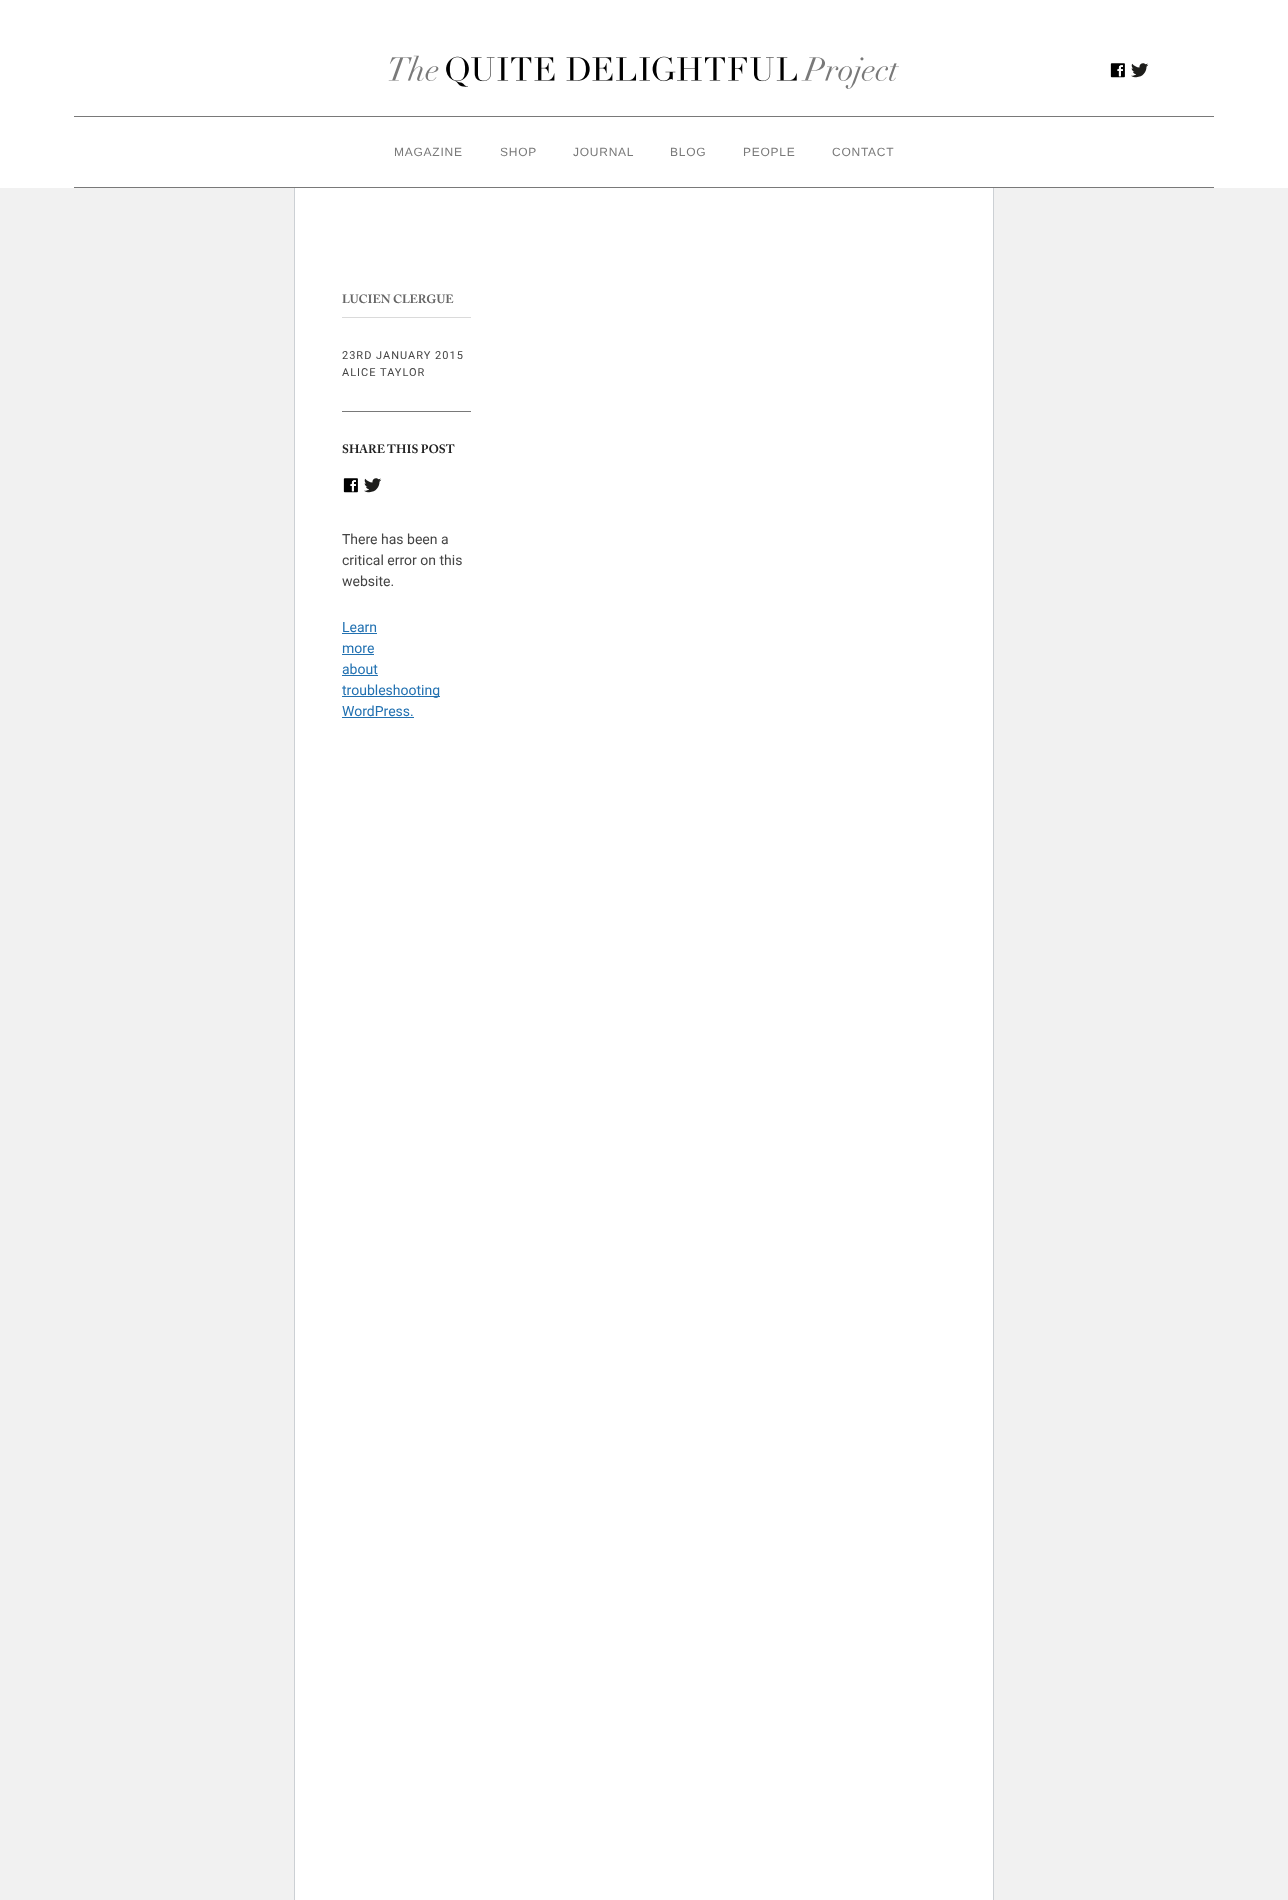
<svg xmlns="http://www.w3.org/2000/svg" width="1288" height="1900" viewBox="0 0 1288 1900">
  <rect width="100%" height="100%" fill="#f1f1f1"/>
  <path d="M295 188h698v1712H295z" fill="#fff"/>
  <path d="M294.5 50.5h699v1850H294.5z" fill="none" stroke="#ccd0d4"/>
  <path d="M0 0h1288v188H0z" fill="#fff"/>
  <image x="388" y="55" width="511" height="34" href="img/1.png"/>
  <image x="1110" y="63" width="15" height="15" href="img/2.png"/>
  <image x="1131" y="63" width="18" height="15" href="img/3.png"/>
  <path d="M74 116h1140v1H74z" fill="#797979"/>
  <path d="M74 187h1140v1H74z" fill="#797979"/>
  <path d="M342 317h129v1H342z" fill="#dadada"/>
  <path d="M342 411h129v1H342z" fill="#797979"/>
  <image x="343" y="478" width="15" height="15" href="img/4.png"/>
  <image x="364" y="478" width="18" height="15" href="img/3.png"/>
  <path d="M342 633h35v1H342z" fill="#2271b1"/>
  <path d="M342 654h32v1H342z" fill="#2271b1"/>
  <path d="M342 675h36v1H342z" fill="#2271b1"/>
  <path d="M342 696h98v1H342z" fill="#2271b1"/>
  <path d="M342 717h72v1H342z" fill="#2271b1"/>
  <g font-family="Liberation Sans" font-size="12" letter-spacing="0.75" fill="#797979">
    <text x="394" y="156">MAGAZINE</text>
    <text x="500" y="156">SHOP</text>
    <text x="573" y="156">JOURNAL</text>
    <text x="670" y="156">BLOG</text>
    <text x="743" y="156">PEOPLE</text>
    <text x="832" y="156">CONTACT</text>
  </g>
  <text x="342" y="303" font-family="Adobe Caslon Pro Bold" font-size="12" font-weight="bold" fill="#666">LUCIEN CLERGUE</text>
  <g font-family="Roboto" font-size="11" letter-spacing="1" fill="#444">
    <text x="342" y="359">23RD JANUARY 2015</text>
    <text x="342" y="376">ALICE TAYLOR</text>
  </g>
  <text x="342" y="453" font-family="Adobe Caslon Pro Bold" font-size="12" font-weight="bold" fill="#222">SHARE THIS POST</text>
  <g font-family="Roboto" font-size="14" fill="#444">
    <text x="342" y="544">There has been a</text>
    <text x="342" y="565">critical error on this</text>
    <text x="342" y="586">website.</text>
  </g>
  <g font-family="Roboto" font-size="14" fill="#2271b1">
    <text x="342" y="632">Learn</text>
    <text x="342" y="653">more</text>
    <text x="342" y="674">about</text>
    <text x="342" y="695">troubleshooting</text>
    <text x="342" y="716">WordPress.</text>
  </g>
</svg>
